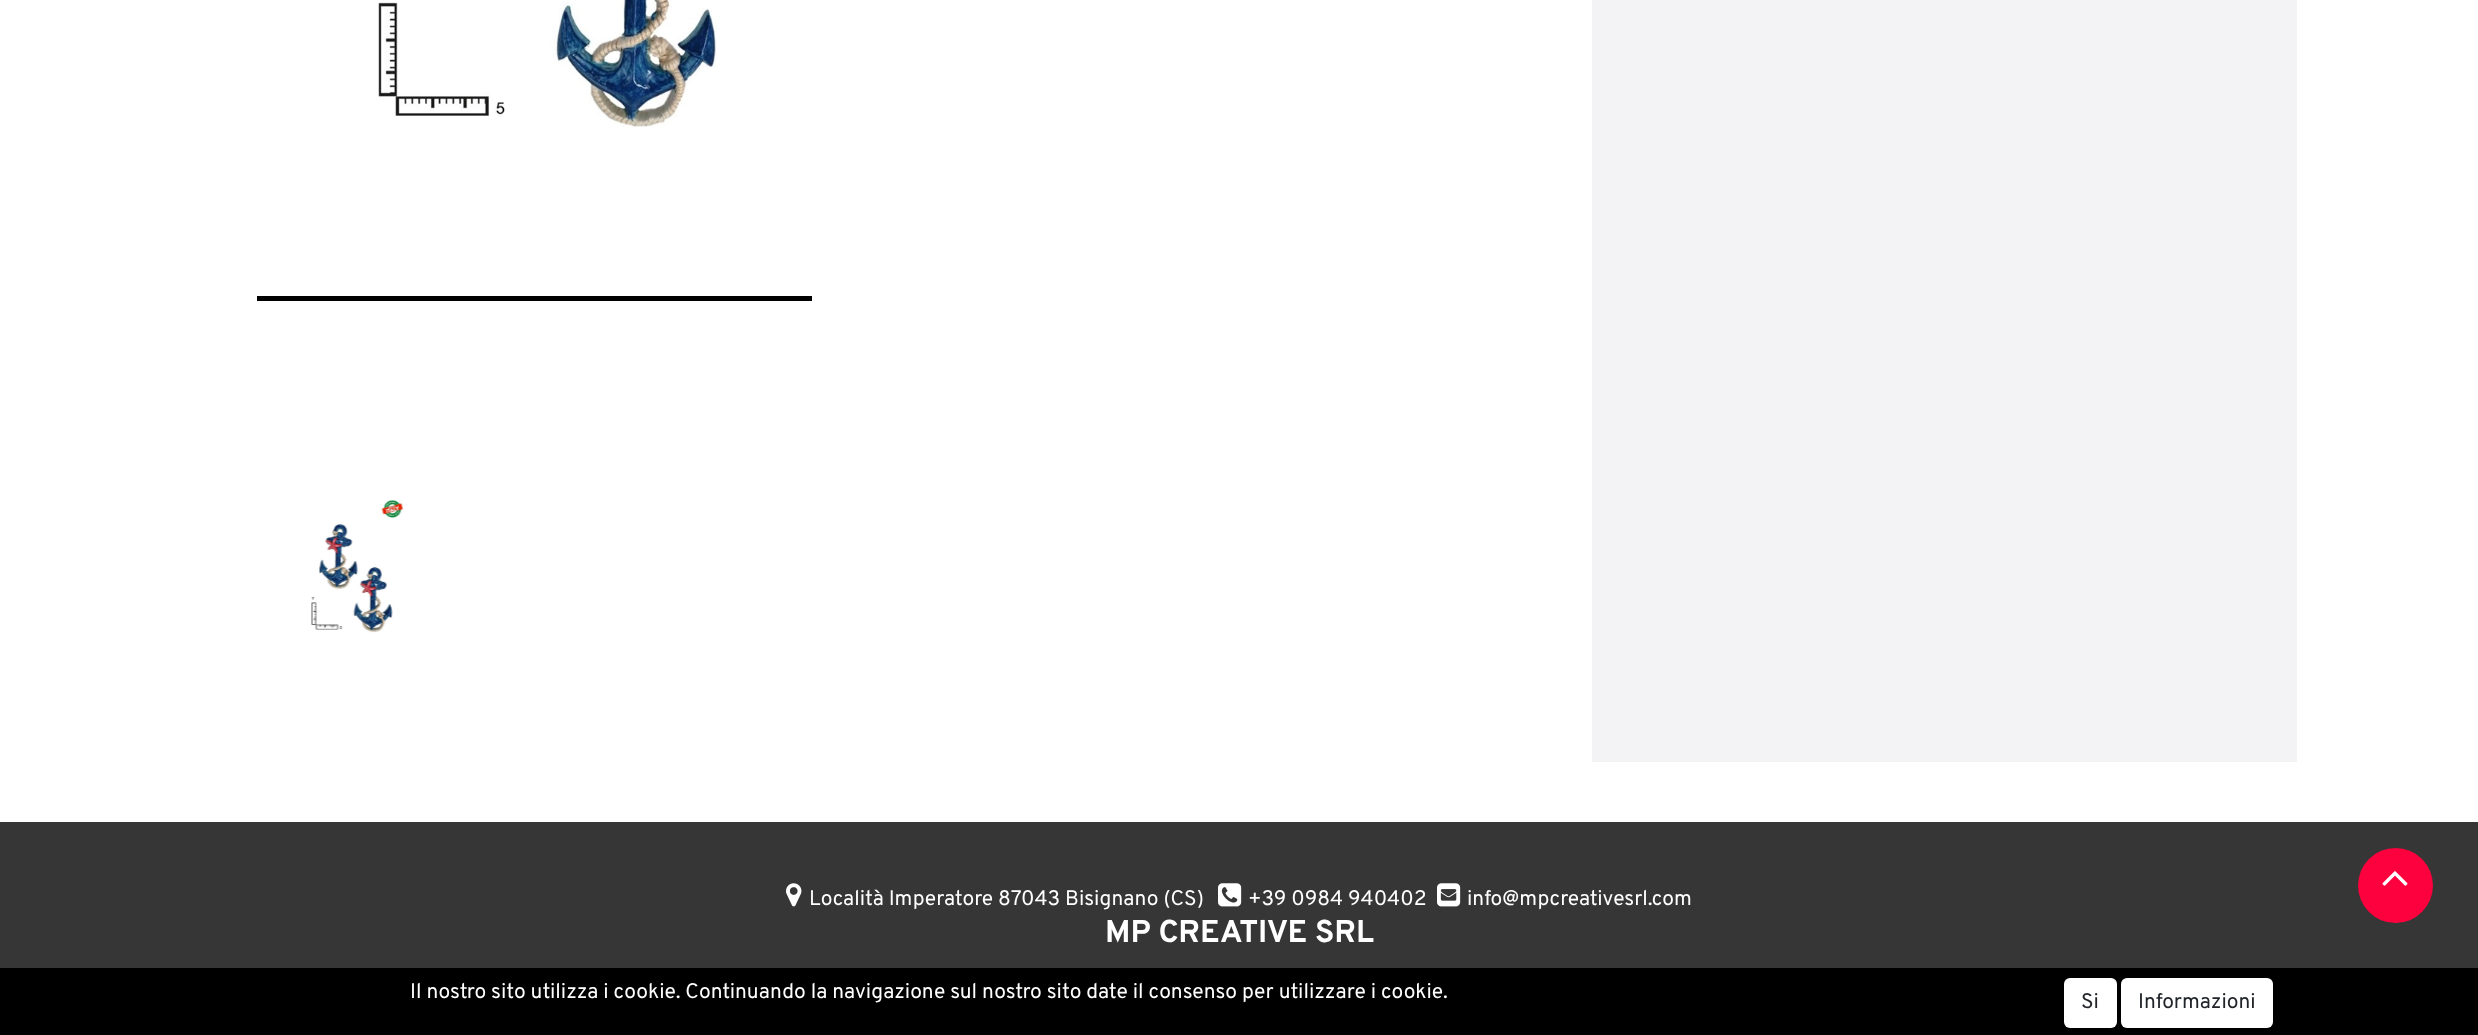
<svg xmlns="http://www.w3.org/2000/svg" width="2478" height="1035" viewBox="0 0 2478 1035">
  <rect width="100%" height="100%" fill="#fff"/>
  <image x="378" y="0" width="339" height="127" href="img/1.png"/>
  <path d="M257 296h555v5H257z" fill="#000"/>
  <image x="311" y="500" width="93" height="133" href="img/2.png"/>
  <path d="M1592 0h705v762H1592z" fill="#f3f3f6"/>
  <path d="M0 822h2478v146H0z" fill="#363636"/>
  <image x="786" y="883" width="16" height="24" href="img/3.png"/>
  <image x="1218" y="883" width="24" height="24" href="img/4.png"/>
  <image x="1437" y="883" width="24" height="24" href="img/5.png"/>
  <circle cx="2395.5" cy="885.5" r="37.5" fill="#fd003e"/>
  <image x="2382" y="871" width="26" height="15" href="img/6.png"/>
  <path d="M0 968h2478v67H0z" fill="#000"/>
  <rect x="2064" y="978" width="53" height="50" rx="6" fill="#fff"/>
  <rect x="2121" y="978" width="152" height="50" rx="6" fill="#fff"/>
  <g font-family="Overpass" font-size="21" fill="#fff">
    <text x="809" y="905">Località Imperatore 87043 Bisignano (CS)</text>
    <text x="1248" y="905">+39 0984 940402</text>
    <text x="1467" y="905">info@mpcreativesrl.com</text>
  </g>
  <text x="1105" y="942" font-family="Overpass" font-size="31.5" font-weight="bold" fill="#fff">MP CREATIVE SRL</text>
  <text x="410" y="998" font-family="Overpass" font-size="21" fill="#fff">Il nostro sito utilizza i cookie. Continuando la navigazione sul nostro sito date il consenso per utilizzare i cookie.</text>
  <g font-family="Overpass" font-size="21" fill="#212529">
    <text x="2081" y="1008">Si</text>
    <text x="2138" y="1008">Informazioni</text>
  </g>
</svg>
